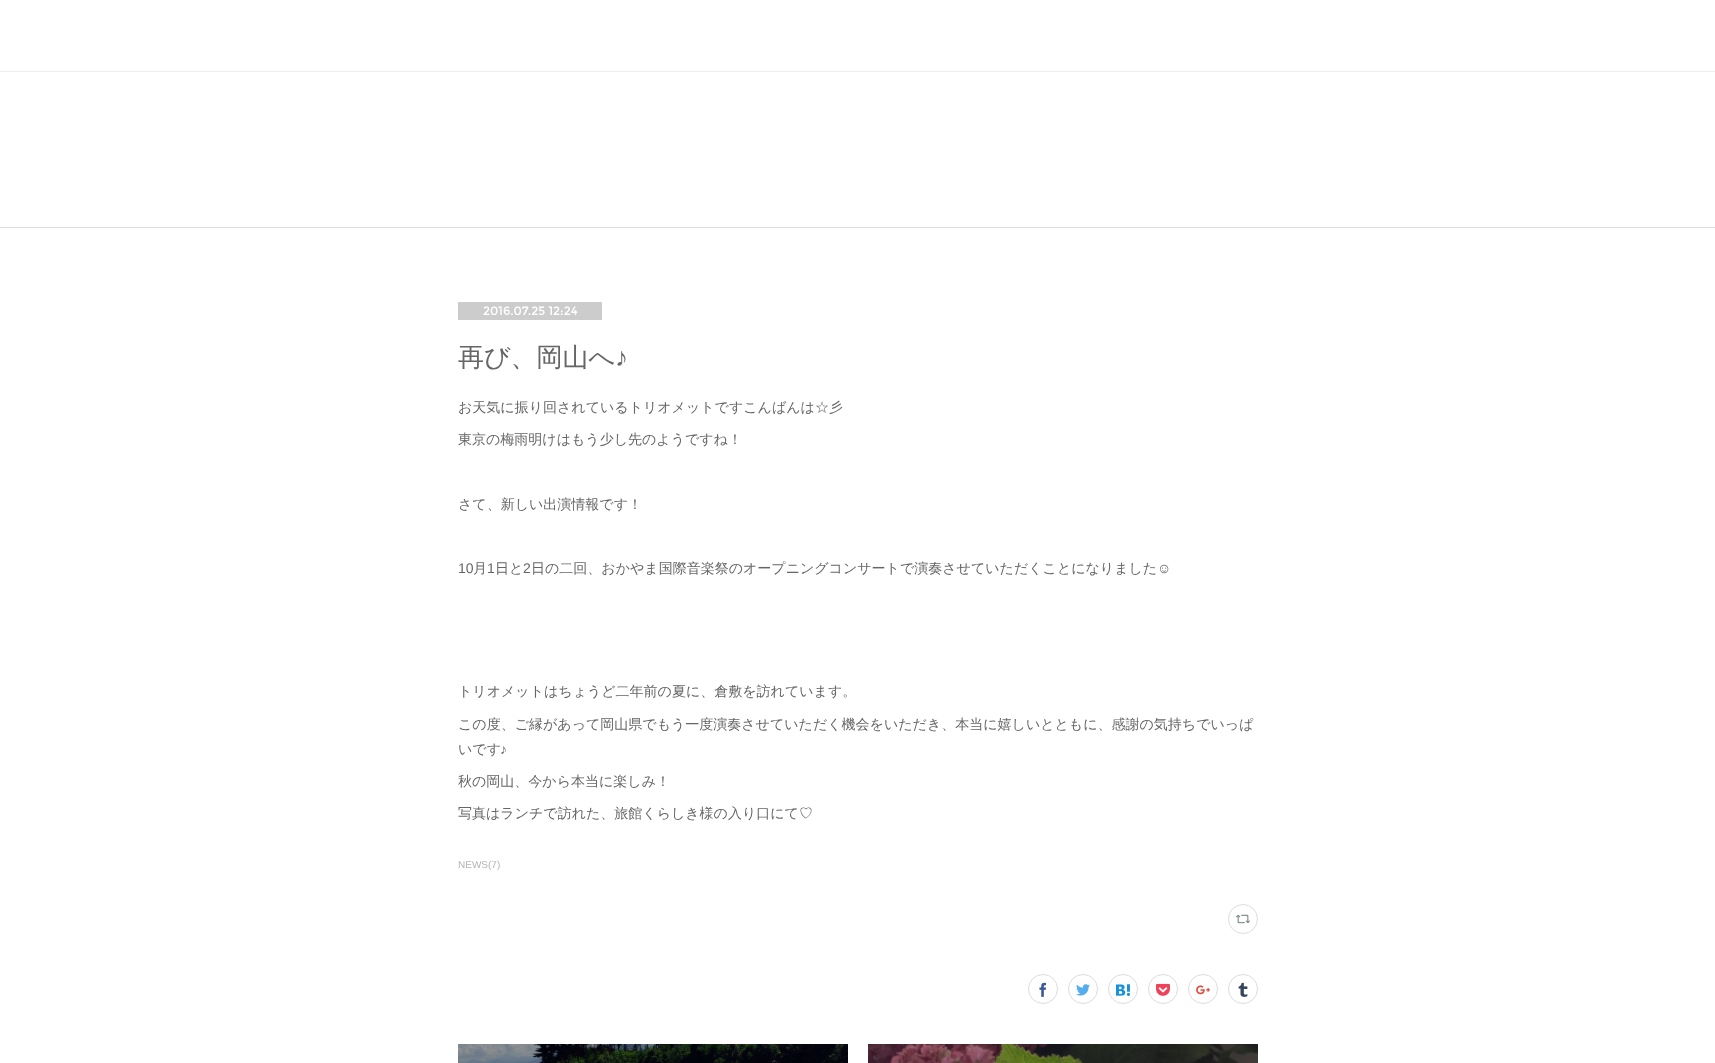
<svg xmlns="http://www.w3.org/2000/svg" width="1715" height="1063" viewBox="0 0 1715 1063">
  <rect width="100%" height="100%" fill="#fff"/>
  <path d="M0 71h1715v1H0z" fill="#eee"/>
  <path d="M0 227h1715v1H0z" fill="#ddd"/>
  <path d="M458 302h144v18H458z" fill="#ccc"/>
  <circle cx="1243" cy="919" r="14.5" fill="none" stroke="#ddd"/>
  <image x="1236" y="914" width="14" height="10" href="img/1.png"/>
  <circle cx="1043" cy="989" r="14.5" fill="none" stroke="#ddd"/>
  <image x="1039" y="982" width="7" height="15" href="img/2.png"/>
  <circle cx="1083" cy="989" r="14.5" fill="none" stroke="#ddd"/>
  <image x="1076" y="984" width="14" height="12" href="img/3.png"/>
  <circle cx="1123" cy="989" r="14.5" fill="none" stroke="#ddd"/>
  <image x="1116" y="984" width="14" height="12" href="img/4.png"/>
  <circle cx="1163" cy="989" r="14.5" fill="none" stroke="#ddd"/>
  <image x="1156" y="983" width="14" height="13" href="img/5.png"/>
  <circle cx="1203" cy="989" r="14.5" fill="none" stroke="#ddd"/>
  <image x="1196" y="985" width="14" height="10" href="img/6.png"/>
  <circle cx="1243" cy="989" r="14.5" fill="none" stroke="#ddd"/>
  <image x="1238" y="982" width="10" height="15" href="img/7.png"/>
  <image x="458" y="1044" width="390" height="19" href="img/8.png"/>
  <image x="868" y="1044" width="390" height="19" href="img/9.png"/>
  <text x="483" y="315" font-family="Montserrat" font-size="12" fill="#fff">2016.07.25 12:24</text>
  <text x="458" y="366" font-family="WenQuanYi Zen Hei" font-size="26" font-weight="500" fill="#666">再び、岡山へ</text>
  <text x="615" y="366" font-family="Liberation Serif" font-size="26" fill="#666">♪</text>
  <g font-family="WenQuanYi Zen Hei" font-size="14" font-weight="500" fill="#666">
    <text x="458" y="412">お天気に振り回されているトリオメットですこんばんは☆彡</text>
    <text x="458" y="444">東京の梅雨明けはもう少し先のようですね！</text>
    <text x="458" y="509">さて、新しい出演情報です！</text>
  </g>
  <text x="458" y="573" font-family="Liberation Sans" font-size="14" fill="#666">10</text>
  <text x="473" y="573" font-family="WenQuanYi Zen Hei" font-size="14" font-weight="500" fill="#666">月</text>
  <text x="487" y="573" font-family="Liberation Sans" font-size="14" fill="#666">1</text>
  <text x="495" y="573" font-family="WenQuanYi Zen Hei" font-size="14" font-weight="500" fill="#666">日と</text>
  <text x="523" y="573" font-family="Liberation Sans" font-size="14" fill="#666">2</text>
  <text x="531" y="573" font-family="WenQuanYi Zen Hei" font-size="14" font-weight="500" fill="#666">日の二回、おかやま国際音楽祭のオープニングコンサートで演奏させていただくことになりました</text>
  <text x="1157" y="573" font-family="Liberation Sans" font-size="14" fill="#666">☺︎</text>
  <g font-family="WenQuanYi Zen Hei" font-size="14" font-weight="500" fill="#666">
    <text x="458" y="696">トリオメットはちょうど二年前の夏に、倉敷を訪れています。</text>
    <text x="458" y="729">この度、ご縁があって岡山県でもう一度演奏させていただく機会をいただき、本当に嬉しいとともに、感謝の気持ちでいっぱ</text>
    <text x="458" y="754">いです</text>
  </g>
  <text x="500" y="754" font-family="Liberation Sans" font-size="14" fill="#666">♪</text>
  <g font-family="WenQuanYi Zen Hei" font-size="14" font-weight="500" fill="#666">
    <text x="458" y="786">秋の岡山、今から本当に楽しみ！</text>
    <text x="458" y="818">写真はランチで訪れた、旅館くらしき様の入り口にて♡</text>
  </g>
  <text x="458" y="868" font-family="Liberation Sans" font-size="10" fill="#b3b3b3">NEWS(7)</text>
</svg>
